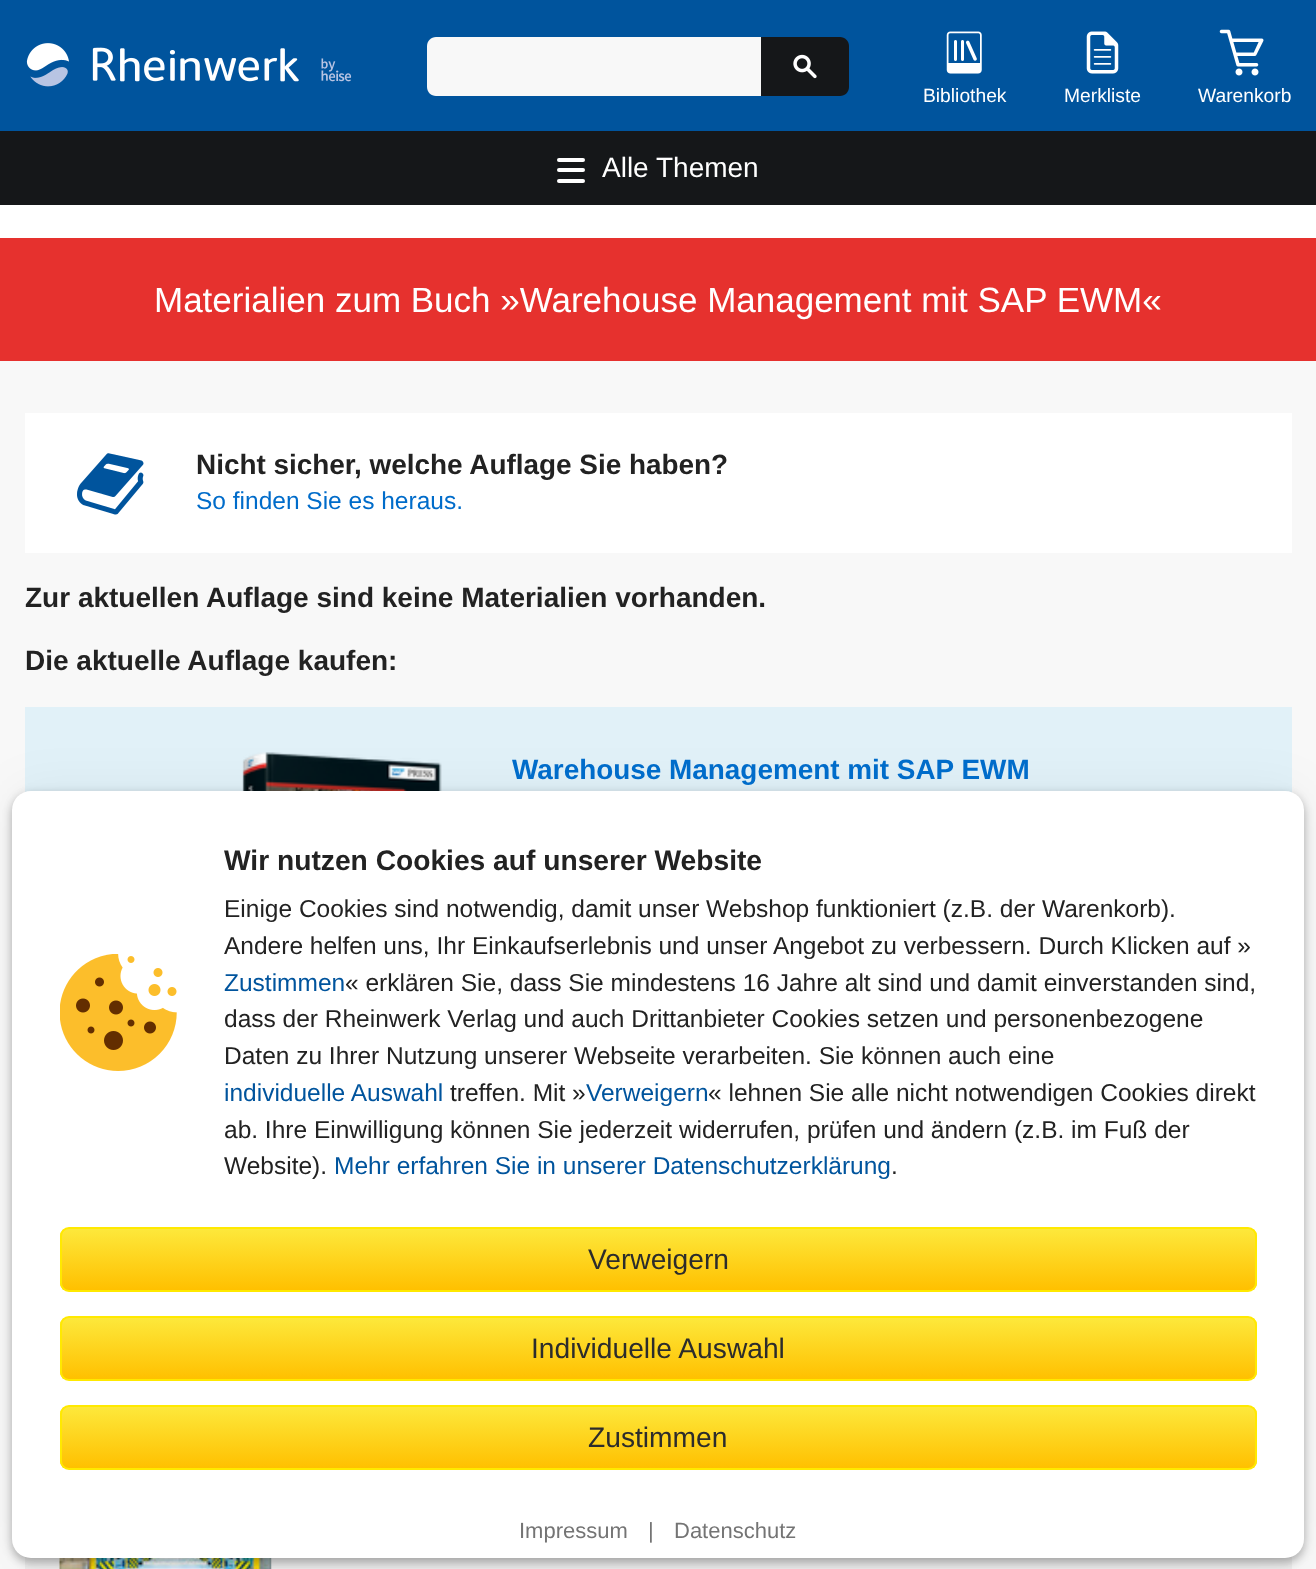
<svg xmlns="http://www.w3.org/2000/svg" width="1316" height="1569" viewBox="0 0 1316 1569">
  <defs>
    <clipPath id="clip1"><rect x="60" y="1227" width="1197" height="65" rx="9"/></clipPath>
    <linearGradient id="g1" gradientUnits="userSpaceOnUse" x1="658" y1="1229" x2="658" y2="1290"><stop offset="0" stop-color="#fde83b"/><stop offset="1" stop-color="#ffc000"/></linearGradient>
    <clipPath id="clip2"><rect x="60" y="1316" width="1197" height="65" rx="9"/></clipPath>
    <linearGradient id="g2" gradientUnits="userSpaceOnUse" x1="658" y1="1318" x2="658" y2="1379"><stop offset="0" stop-color="#fde83b"/><stop offset="1" stop-color="#ffc000"/></linearGradient>
    <clipPath id="clip3"><rect x="60" y="1405" width="1197" height="65" rx="9"/></clipPath>
    <linearGradient id="g3" gradientUnits="userSpaceOnUse" x1="658" y1="1407" x2="658" y2="1468"><stop offset="0" stop-color="#fde83b"/><stop offset="1" stop-color="#ffc000"/></linearGradient>
  </defs>
  <rect width="100%" height="100%" fill="#fff"/>
  <path d="M0 0h1316v131H0z" fill="#00549d"/>
  <image x="26" y="43" width="326" height="44" href="img/1.png"/>
  <path d="M436 37H761V96H436C431 96 427 92 427 87V46C427 41 431 37 436 37Z" fill="#f8f8f8"/>
  <path d="M761 37H840C845 37 849 41 849 46V87C849 92 845 96 840 96H761Z" fill="#151719"/>
  <image x="793" y="54" width="24" height="25" href="img/2.png"/>
  <image x="946" y="31" width="36" height="43" href="img/3.png"/>
  <image x="1086" y="31" width="33" height="43" href="img/4.png"/>
  <image x="1219" y="29" width="45" height="47" href="img/5.png"/>
  <path d="M0 131h1316v74H0z" fill="#151719"/>
  <rect x="557" y="168" width="28" height="4" rx="2" fill="#fff"/>
  <rect x="557" y="158" width="28" height="4" rx="2" fill="#fff"/>
  <rect x="557" y="179" width="28" height="4" rx="2" fill="#fff"/>
  <path d="M0 361h1316v1208H0z" fill="#f8f8f8"/>
  <path d="M0 238h1316v123H0z" fill="#e6312e"/>
  <path d="M25 413h1267v140H25z" fill="#fff"/>
  <image x="77" y="453" width="67" height="62" href="img/6.png"/>
  <path d="M25 707h1267v86H25z" fill="#e1f1f8"/>
  <image x="242" y="752" width="200" height="39" href="img/7.png"/>
  <path d="M25 1556h1267v13H25z" fill="#eee"/>
  <image x="59" y="1558" width="213" height="11" href="img/8.png"/>
  <rect x="12" y="791" width="1292" height="767" rx="19" fill="#0000000d" filter="blur(26px)"/>
  <rect x="12" y="796" width="1292" height="767" rx="19" fill="#00000040" filter="blur(5px)"/>
  <rect x="12" y="791" width="1292" height="767" rx="19" fill="#0000000f" filter="blur(5px)"/>
  <rect x="12" y="791" width="1292" height="767" rx="19" fill="#fff"/>
  <image x="60" y="954" width="117" height="117" href="img/9.png"/>
  <g clip-path="url(#clip1)">
    <path d="M60 1229h1197v61H60z" fill="url(#g1)"/>
  </g>
  <rect x="61" y="1228" width="1195" height="63" rx="8" fill="none" stroke="#ffe900" stroke-width="2"/>
  <g clip-path="url(#clip2)">
    <path d="M60 1318h1197v61H60z" fill="url(#g2)"/>
  </g>
  <rect x="61" y="1317" width="1195" height="63" rx="8" fill="none" stroke="#ffe900" stroke-width="2"/>
  <g clip-path="url(#clip3)">
    <path d="M60 1407h1197v61H60z" fill="url(#g3)"/>
  </g>
  <rect x="61" y="1406" width="1195" height="63" rx="8" fill="none" stroke="#ffe900" stroke-width="2"/>
  <g font-family="Liberation Sans" font-size="19.25" fill="#fff">
    <text x="923" y="102">Bibliothek</text>
    <text x="1064" y="102">Merkliste</text>
    <text x="1198" y="102">Warenkorb</text>
  </g>
  <text x="602" y="177" font-family="Liberation Sans" font-size="28" fill="#fff">Alle Themen</text>
  <text x="154" y="312" font-family="Liberation Sans" font-size="35" fill="#fff">Materialien zum Buch »Warehouse Management mit SAP EWM«</text>
  <text x="196" y="474" font-family="Liberation Sans" font-size="27.9" font-weight="bold" fill="#222">Nicht sicher, welche Auflage Sie haben?</text>
  <text x="196" y="509" font-family="Liberation Sans" font-size="24.5" fill="#006cca">So finden Sie es heraus.</text>
  <g font-family="Liberation Sans" font-size="28" font-weight="bold" fill="#222">
    <text x="25" y="607">Zur aktuellen Auflage sind keine Materialien vorhanden.</text>
    <text x="25" y="670">Die aktuelle Auflage kaufen:</text>
  </g>
  <text x="512" y="779" font-family="Liberation Sans" font-size="27.9" font-weight="bold" fill="#006cca">Warehouse Management mit SAP EWM</text>
  <text x="224" y="870" font-family="Liberation Sans" font-size="28.2" font-weight="bold" fill="#222">Wir nutzen Cookies auf unserer Website</text>
  <g font-family="Liberation Sans" font-size="24.5" fill="#222">
    <text x="224" y="917">Einige Cookies sind notwendig, damit unser Webshop funktioniert (z.B. der Warenkorb).</text>
    <text x="224" y="954">Andere helfen uns, Ihr Einkaufserlebnis und unser Angebot zu verbessern. Durch Klicken auf »</text>
  </g>
  <text x="224" y="991" font-family="Liberation Sans" font-size="24.5" fill="#00549d">Zustimmen</text>
  <g font-family="Liberation Sans" font-size="24.5" fill="#222">
    <text x="345" y="991">« erklären Sie, dass Sie mindestens 16 Jahre alt sind und damit einverstanden sind,</text>
    <text x="224" y="1027">dass der Rheinwerk Verlag und auch Drittanbieter Cookies setzen und personenbezogene</text>
    <text x="224" y="1064">Daten zu Ihrer Nutzung unserer Webseite verarbeiten. Sie können auch eine</text>
  </g>
  <text x="224" y="1101" font-family="Liberation Sans" font-size="24.5" fill="#00549d">individuelle Auswahl</text>
  <text x="450" y="1101" font-family="Liberation Sans" font-size="24.5" fill="#222">treffen. Mit »</text>
  <text x="586" y="1101" font-family="Liberation Sans" font-size="24.5" fill="#00549d">Verweigern</text>
  <g font-family="Liberation Sans" font-size="24.5" fill="#222">
    <text x="708" y="1101">« lehnen Sie alle nicht notwendigen Cookies direkt</text>
    <text x="224" y="1138">ab. Ihre Einwilligung können Sie jederzeit widerrufen, prüfen und ändern (z.B. im Fuß der</text>
    <text x="224" y="1174">Website).</text>
  </g>
  <text x="334" y="1174" font-family="Liberation Sans" font-size="24.5" fill="#00549d">Mehr erfahren Sie in unserer Datenschutzerklärung</text>
  <text x="891" y="1174" font-family="Liberation Sans" font-size="24.5" fill="#222">.</text>
  <g font-family="Liberation Sans" font-size="28.2" fill="#2c2c2c">
    <text x="588" y="1269">Verweigern</text>
    <text x="531" y="1358">Individuelle Auswahl</text>
    <text x="588" y="1447">Zustimmen</text>
  </g>
  <g font-family="Liberation Sans" font-size="22" fill="#747474">
    <text x="519" y="1538">Impressum</text>
    <text x="648" y="1538">|</text>
    <text x="674" y="1538">Datenschutz</text>
  </g>
</svg>
